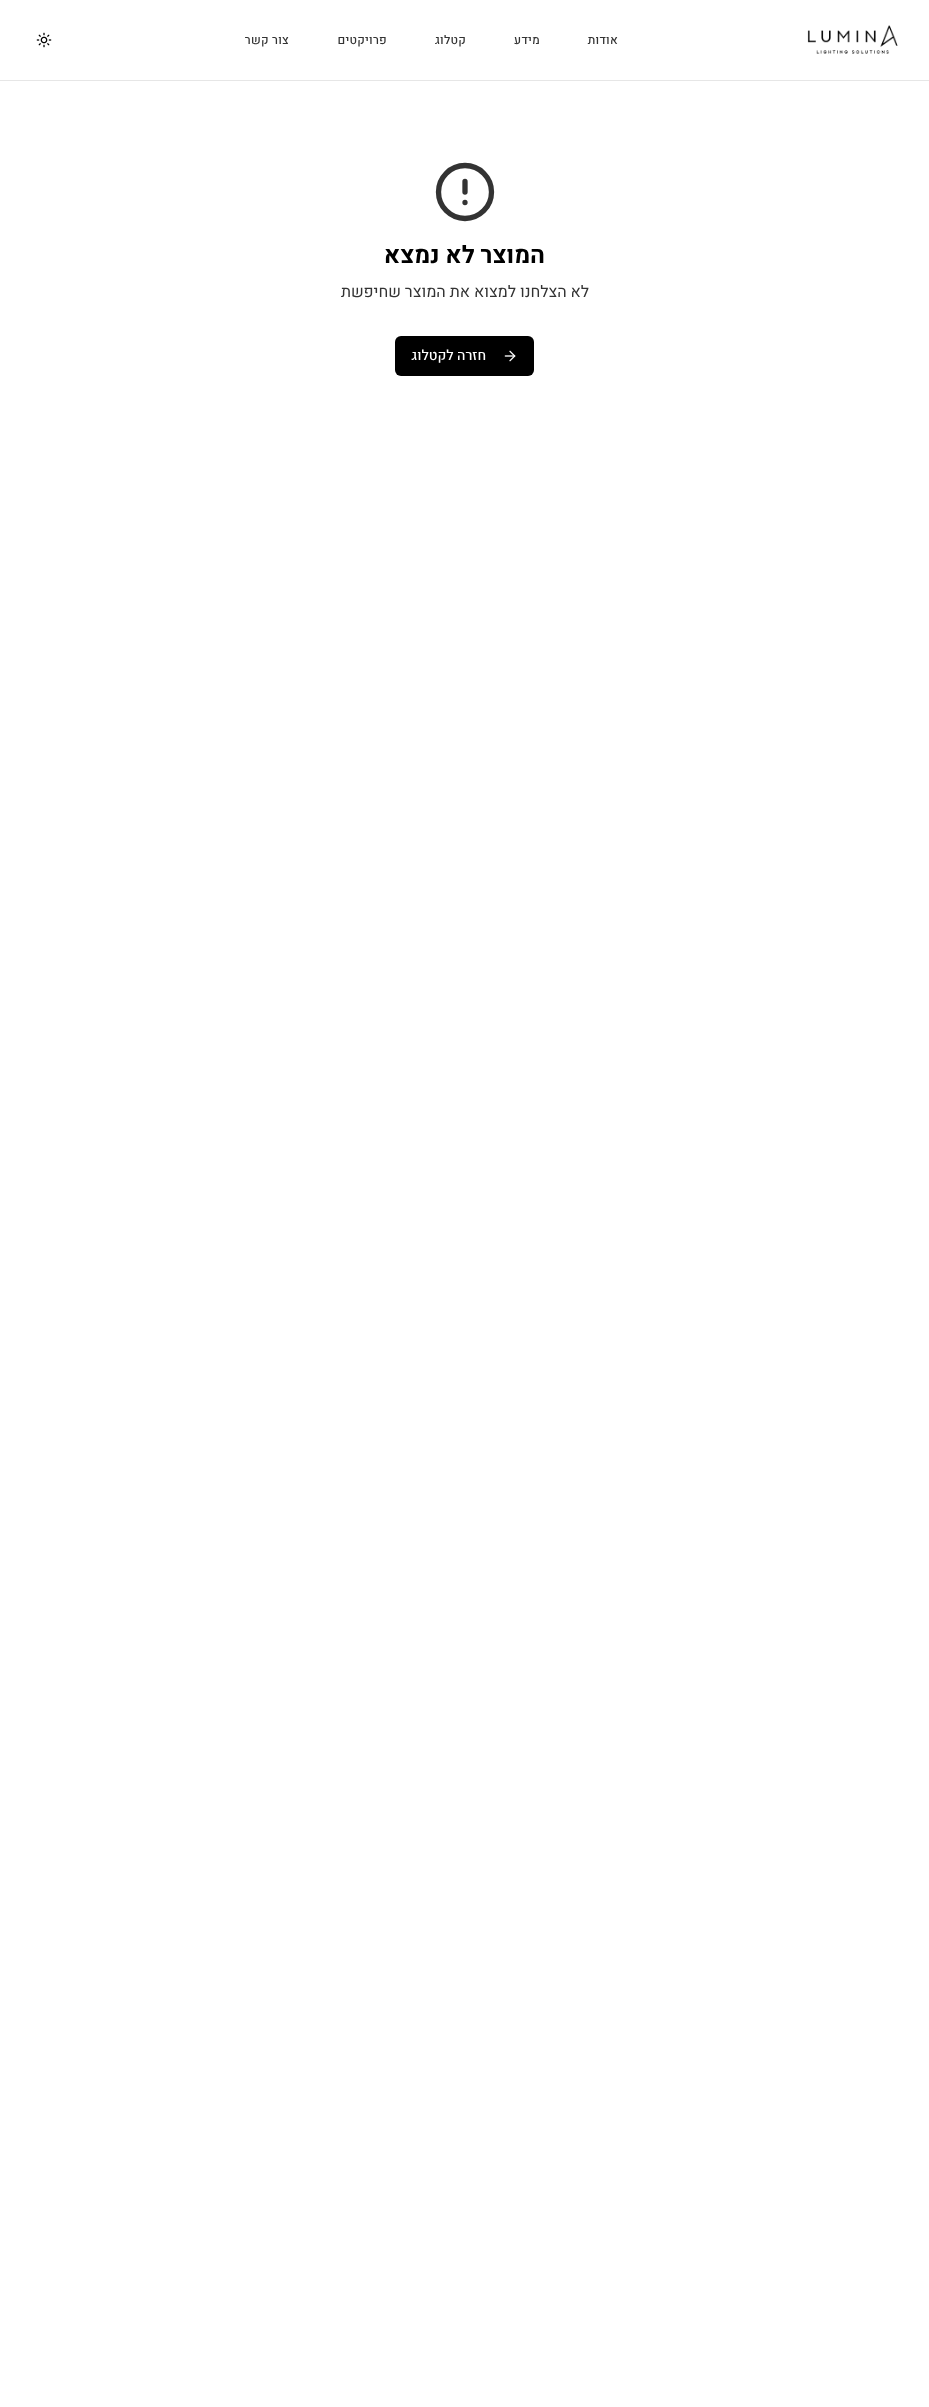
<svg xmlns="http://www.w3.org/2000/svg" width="929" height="2407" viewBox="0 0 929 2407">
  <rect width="100%" height="100%" fill="#fff"/>
  <path d="M0 80h929v1H0z" fill="#e6e6e6"/>
  <image x="807" y="25" width="91" height="29" href="img/1.png"/>
  <image x="36" y="32" width="16" height="16" href="img/2.png"/>
  <circle cx="465" cy="192" r="26.5" fill="none" stroke="#333" stroke-width="5.3"/>
  <path d="M465 181.5V192M465 202.5H465" fill="none" stroke="#333" stroke-width="5.3" stroke-linecap="round" stroke-linejoin="round"/>
  <rect x="395" y="336" width="139" height="40" rx="6" fill="#000"/>
  <image x="504" y="350" width="12" height="12" href="img/3.png"/>
  <g font-family="Heebo" font-size="12" font-weight="500" letter-spacing="0.25" direction="rtl" fill="#333">
    <text x="618" y="44">אודות</text>
    <text x="540" y="44">מידע</text>
    <text x="466" y="44">קטלוג</text>
    <text x="387" y="44">פרויקטים</text>
    <text x="289" y="44">צור קשר</text>
  </g>
  <text x="545" y="263" font-family="Heebo" font-size="24" font-weight="bold" direction="rtl" fill="#000">המוצר לא נמצא</text>
  <text x="589" y="297" font-family="Heebo" font-size="16" direction="rtl" fill="#333">לא הצלחנו למצוא את המוצר שחיפשת</text>
  <text x="486" y="360" font-family="Heebo" font-size="14" font-weight="500" direction="rtl" fill="#fff">חזרה לקטלוג</text>
</svg>
